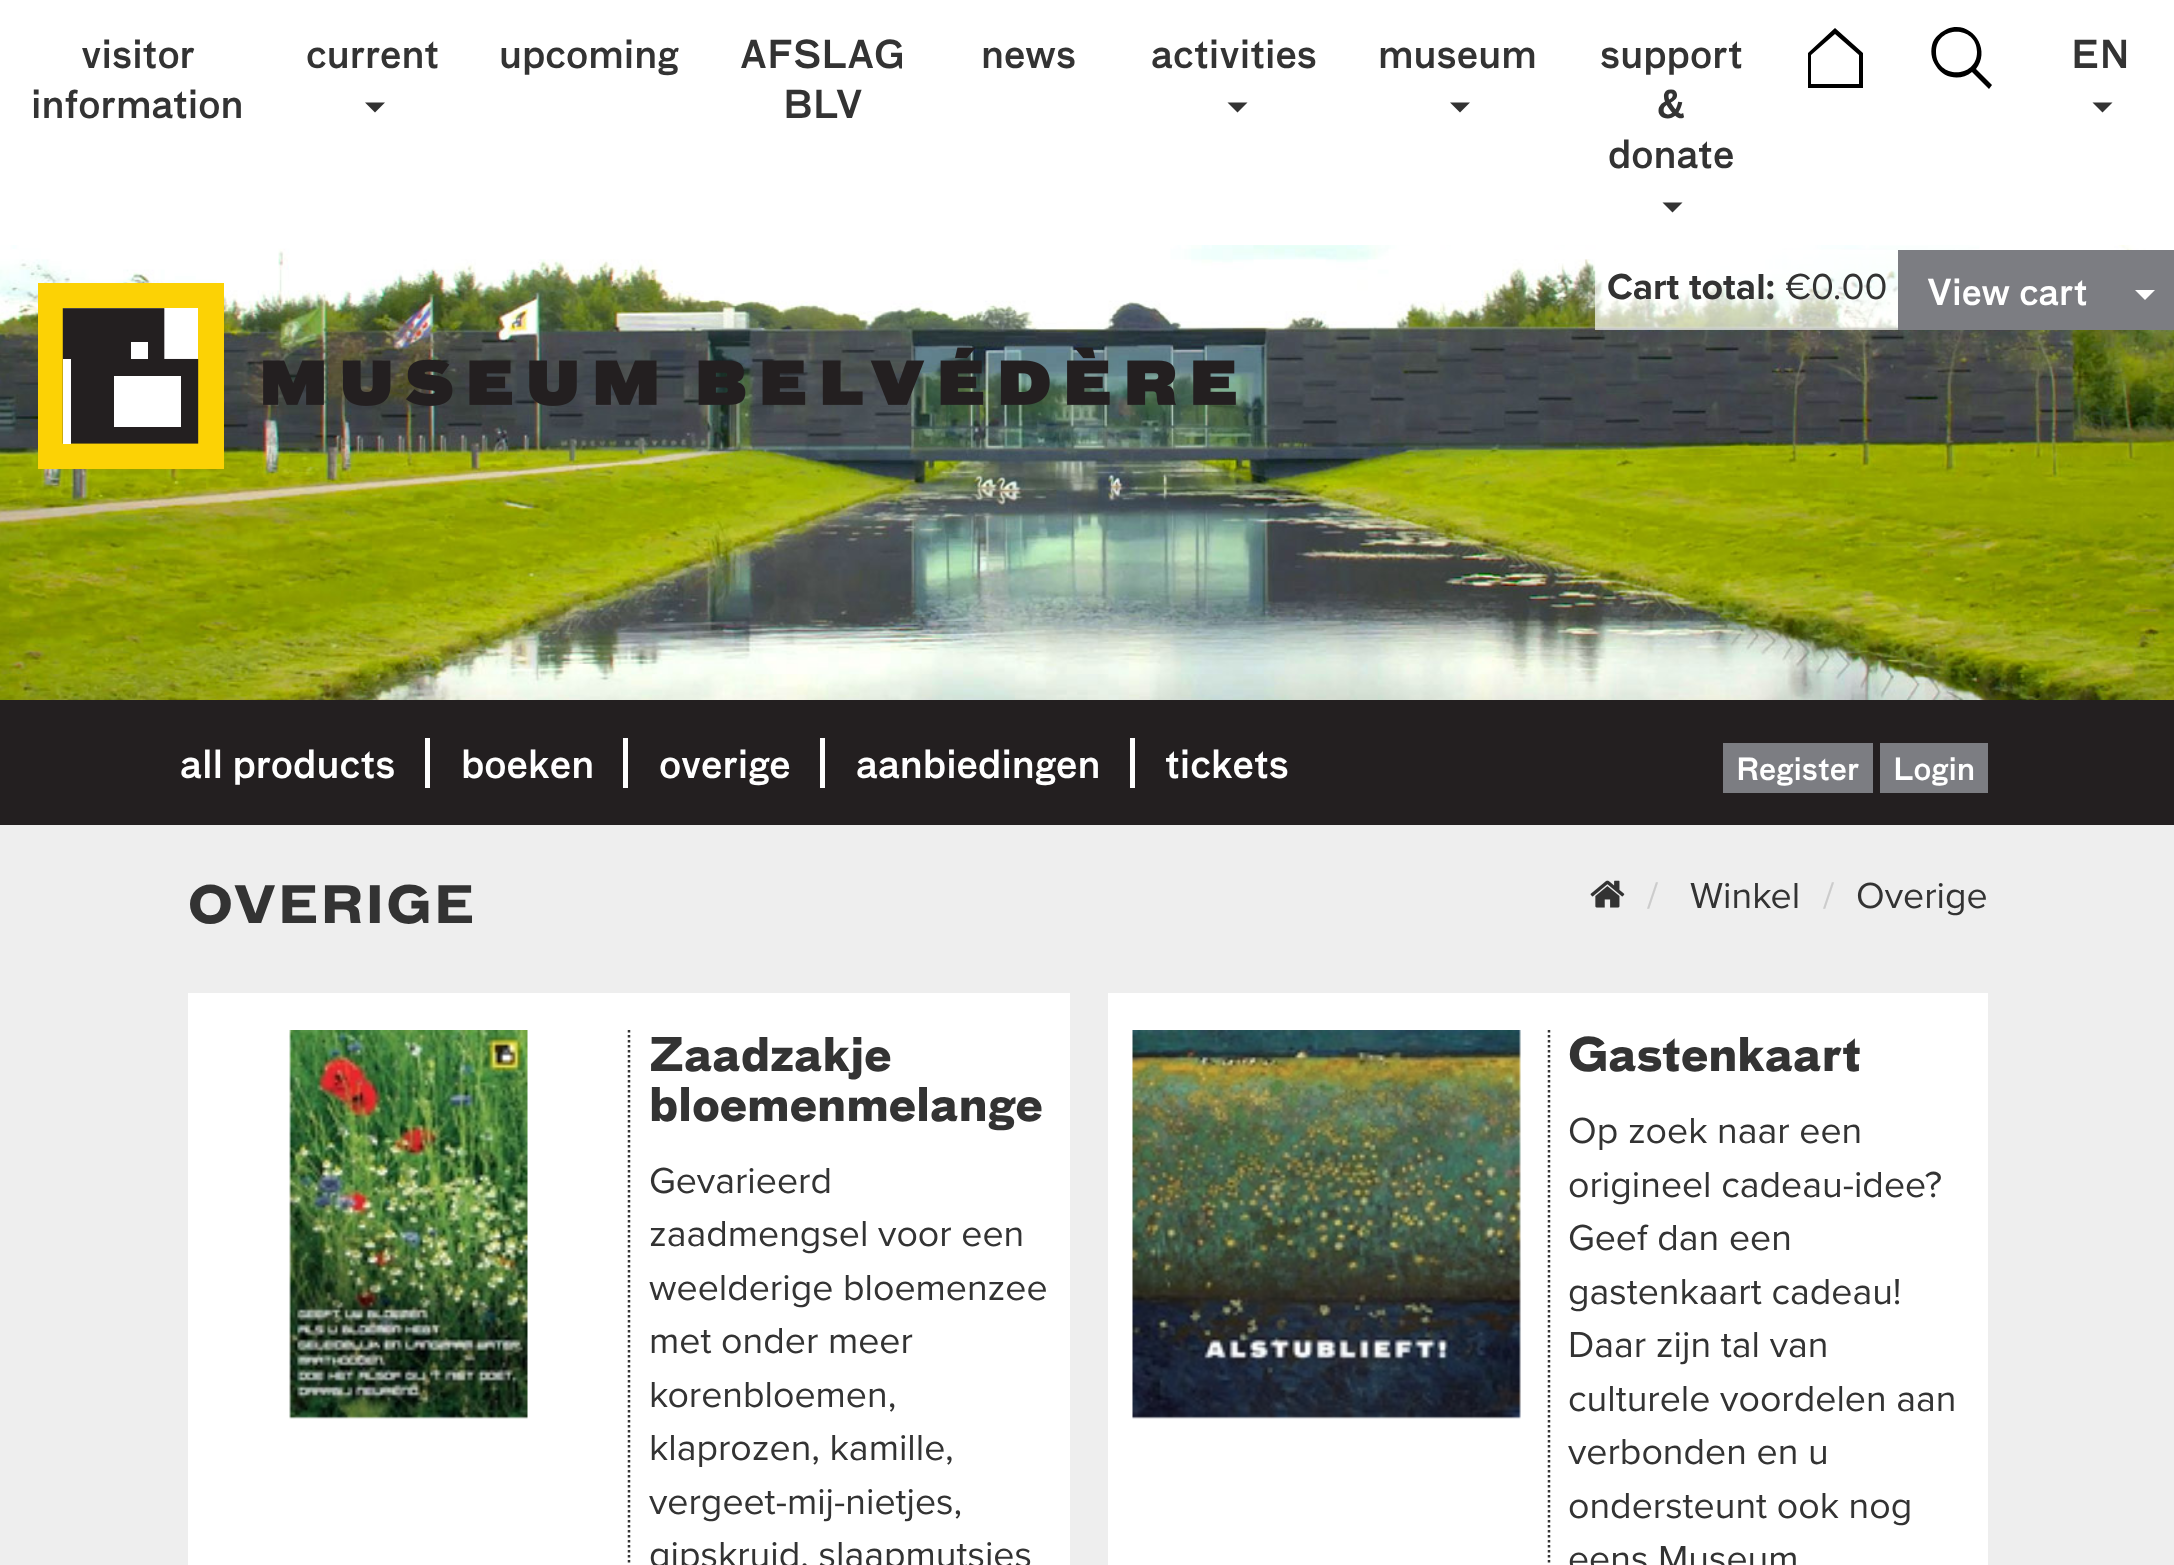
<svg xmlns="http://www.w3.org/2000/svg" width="2174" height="1565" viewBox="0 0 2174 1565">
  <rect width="100%" height="100%" fill="#eee"/>
  <path d="M0 0h2174v245H0z" fill="#fff"/>
  <path d="M365 102.5H385L375 112.5Z" fill="#333"/>
  <path d="M1227.5 102.5H1247.5L1237.5 112.5Z" fill="#333"/>
  <path d="M1450 102.5H1470L1460 112.5Z" fill="#333"/>
  <path d="M1662.5 202.5H1682.5L1672.5 212.5Z" fill="#333"/>
  <path d="M1835 28L1808 53V88H1863V53ZM1811 84V55L1835 34L1859 55V84Z" fill="#000"/>
  <path d="M1992 85L1976 69C1992 49 1971 19 1947 29C1941 32 1936 36 1933 42C1930 50 1931 59 1936 66C1944 79 1961 81 1972 72L1989 89ZM1936 52C1936 25 1977 25 1977 52C1977 79 1936 79 1936 52Z" fill="#000"/>
  <path d="M2092.5 102.5H2112.5L2102.5 112.5Z" fill="#333"/>
  <image x="0" y="245" width="2174" height="455" href="img/2.png"/>
  <image x="38" y="283" width="1198" height="186" href="img/1.png"/>
  <path d="M1595 250h303v80H1595z" fill="#ffffffad"/>
  <path d="M1898 250h276v80H1898z" fill="#7c7d82"/>
  <path d="M2135 290H2155L2145 300Z" fill="#fff"/>
  <path d="M0 700h2174v125H0z" fill="#231f20"/>
  <path d="M425 738h5v50H425z" fill="#fff"/>
  <path d="M623 738h5v50H623z" fill="#fff"/>
  <path d="M820 738h5v50H820z" fill="#fff"/>
  <path d="M1130 738h5v50H1130z" fill="#fff"/>
  <path d="M1723 743h150v50H1723z" fill="#7c7d82"/>
  <path d="M1880 743h108v50H1880z" fill="#7c7d82"/>
  <image x="1590" y="880" width="35" height="28" href="img/3.png"/>
  <path d="M188 993h882v572H188z" fill="#fff"/>
  <image x="289" y="1030" width="239" height="389" href="img/4.png"/>
  <path d="M629 1030V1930" fill="none" stroke="#333" stroke-width="2.5" stroke-dasharray="2.5 2.5"/>
  <path d="M1108 993h880v572H1108z" fill="#fff"/>
  <image x="1132" y="1030" width="389" height="389" href="img/5.png"/>
  <path d="M1549 1030V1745" fill="none" stroke="#333" stroke-width="2.5" stroke-dasharray="2.5 2.5"/>
  <g font-family="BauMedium" font-size="37.5" font-weight="500" fill="#333">
    <text x="81" y="68">visitor</text>
    <text x="31" y="118">information</text>
    <text x="306" y="68">current</text>
    <text x="499" y="68">upcoming</text>
    <text x="740" y="68">AFSLAG</text>
    <text x="783" y="118">BLV</text>
    <text x="981" y="68">news</text>
    <text x="1151" y="68">activities</text>
    <text x="1378" y="68">museum</text>
    <text x="1600" y="68">support</text>
    <text x="1657" y="118">&amp;</text>
    <text x="1608" y="168">donate</text>
    <text x="2071" y="68">EN</text>
  </g>
  <text x="1607" y="299" font-family="Proxima Nova" font-size="37.5" font-weight="bold" fill="#333">Cart total:</text>
  <text x="1785" y="299" font-family="Proxima Nova" font-size="37.5" fill="#333">€0.00</text>
  <text x="1927" y="305" font-family="BauMedium" font-size="35" font-weight="500" fill="#fff">View cart</text>
  <g font-family="BauMedium" font-size="37.5" font-weight="500" fill="#fff">
    <text x="180" y="778">all products</text>
    <text x="461" y="778">boeken</text>
    <text x="659" y="778">overige</text>
    <text x="856" y="778">aanbiedingen</text>
    <text x="1165" y="778">tickets</text>
  </g>
  <g font-family="BauMedium" font-size="30" font-weight="500" fill="#fff">
    <text x="1736" y="780">Register</text>
    <text x="1893" y="780">Login</text>
  </g>
  <text x="188" y="923" font-family="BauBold" font-size="50" font-weight="bold" letter-spacing="2.5" fill="#333">OVERIGE</text>
  <text x="1647" y="908" font-family="Proxima Nova" font-size="37.5" fill="#ccc">/</text>
  <text x="1690" y="908" font-family="Proxima Nova" font-size="37.5" fill="#333">Winkel</text>
  <text x="1823" y="908" font-family="Proxima Nova" font-size="37.5" fill="#ccc">/</text>
  <text x="1856" y="908" font-family="Proxima Nova" font-size="37.5" fill="#333">Overige</text>
  <g font-family="BauBold" font-size="45" font-weight="bold" fill="#333">
    <text x="649" y="1071">Zaadzakje</text>
    <text x="649" y="1121">bloemenmelange</text>
  </g>
  <g font-family="Proxima Nova" font-size="37.5" fill="#333">
    <text x="649" y="1193">Gevarieerd</text>
    <text x="649" y="1246">zaadmengsel voor een</text>
    <text x="649" y="1300">weelderige bloemenzee</text>
    <text x="649" y="1353">met onder meer</text>
    <text x="649" y="1407">korenbloemen,</text>
    <text x="649" y="1460">klaprozen, kamille,</text>
    <text x="649" y="1514">vergeet-mij-nietjes,</text>
    <text x="649" y="1567">gipskruid, slaapmutsjes</text>
  </g>
  <text x="1568" y="1071" font-family="BauBold" font-size="45" font-weight="bold" fill="#333">Gastenkaart</text>
  <g font-family="Proxima Nova" font-size="37.5" fill="#333">
    <text x="1568" y="1143">Op zoek naar een</text>
    <text x="1568" y="1197">origineel cadeau-idee?</text>
    <text x="1568" y="1250">Geef dan een</text>
    <text x="1568" y="1304">gastenkaart cadeau!</text>
    <text x="1568" y="1357">Daar zijn tal van</text>
    <text x="1568" y="1411">culturele voordelen aan</text>
    <text x="1568" y="1464">verbonden en u</text>
    <text x="1568" y="1518">ondersteunt ook nog</text>
    <text x="1568" y="1571">eens Museum</text>
  </g>
</svg>
